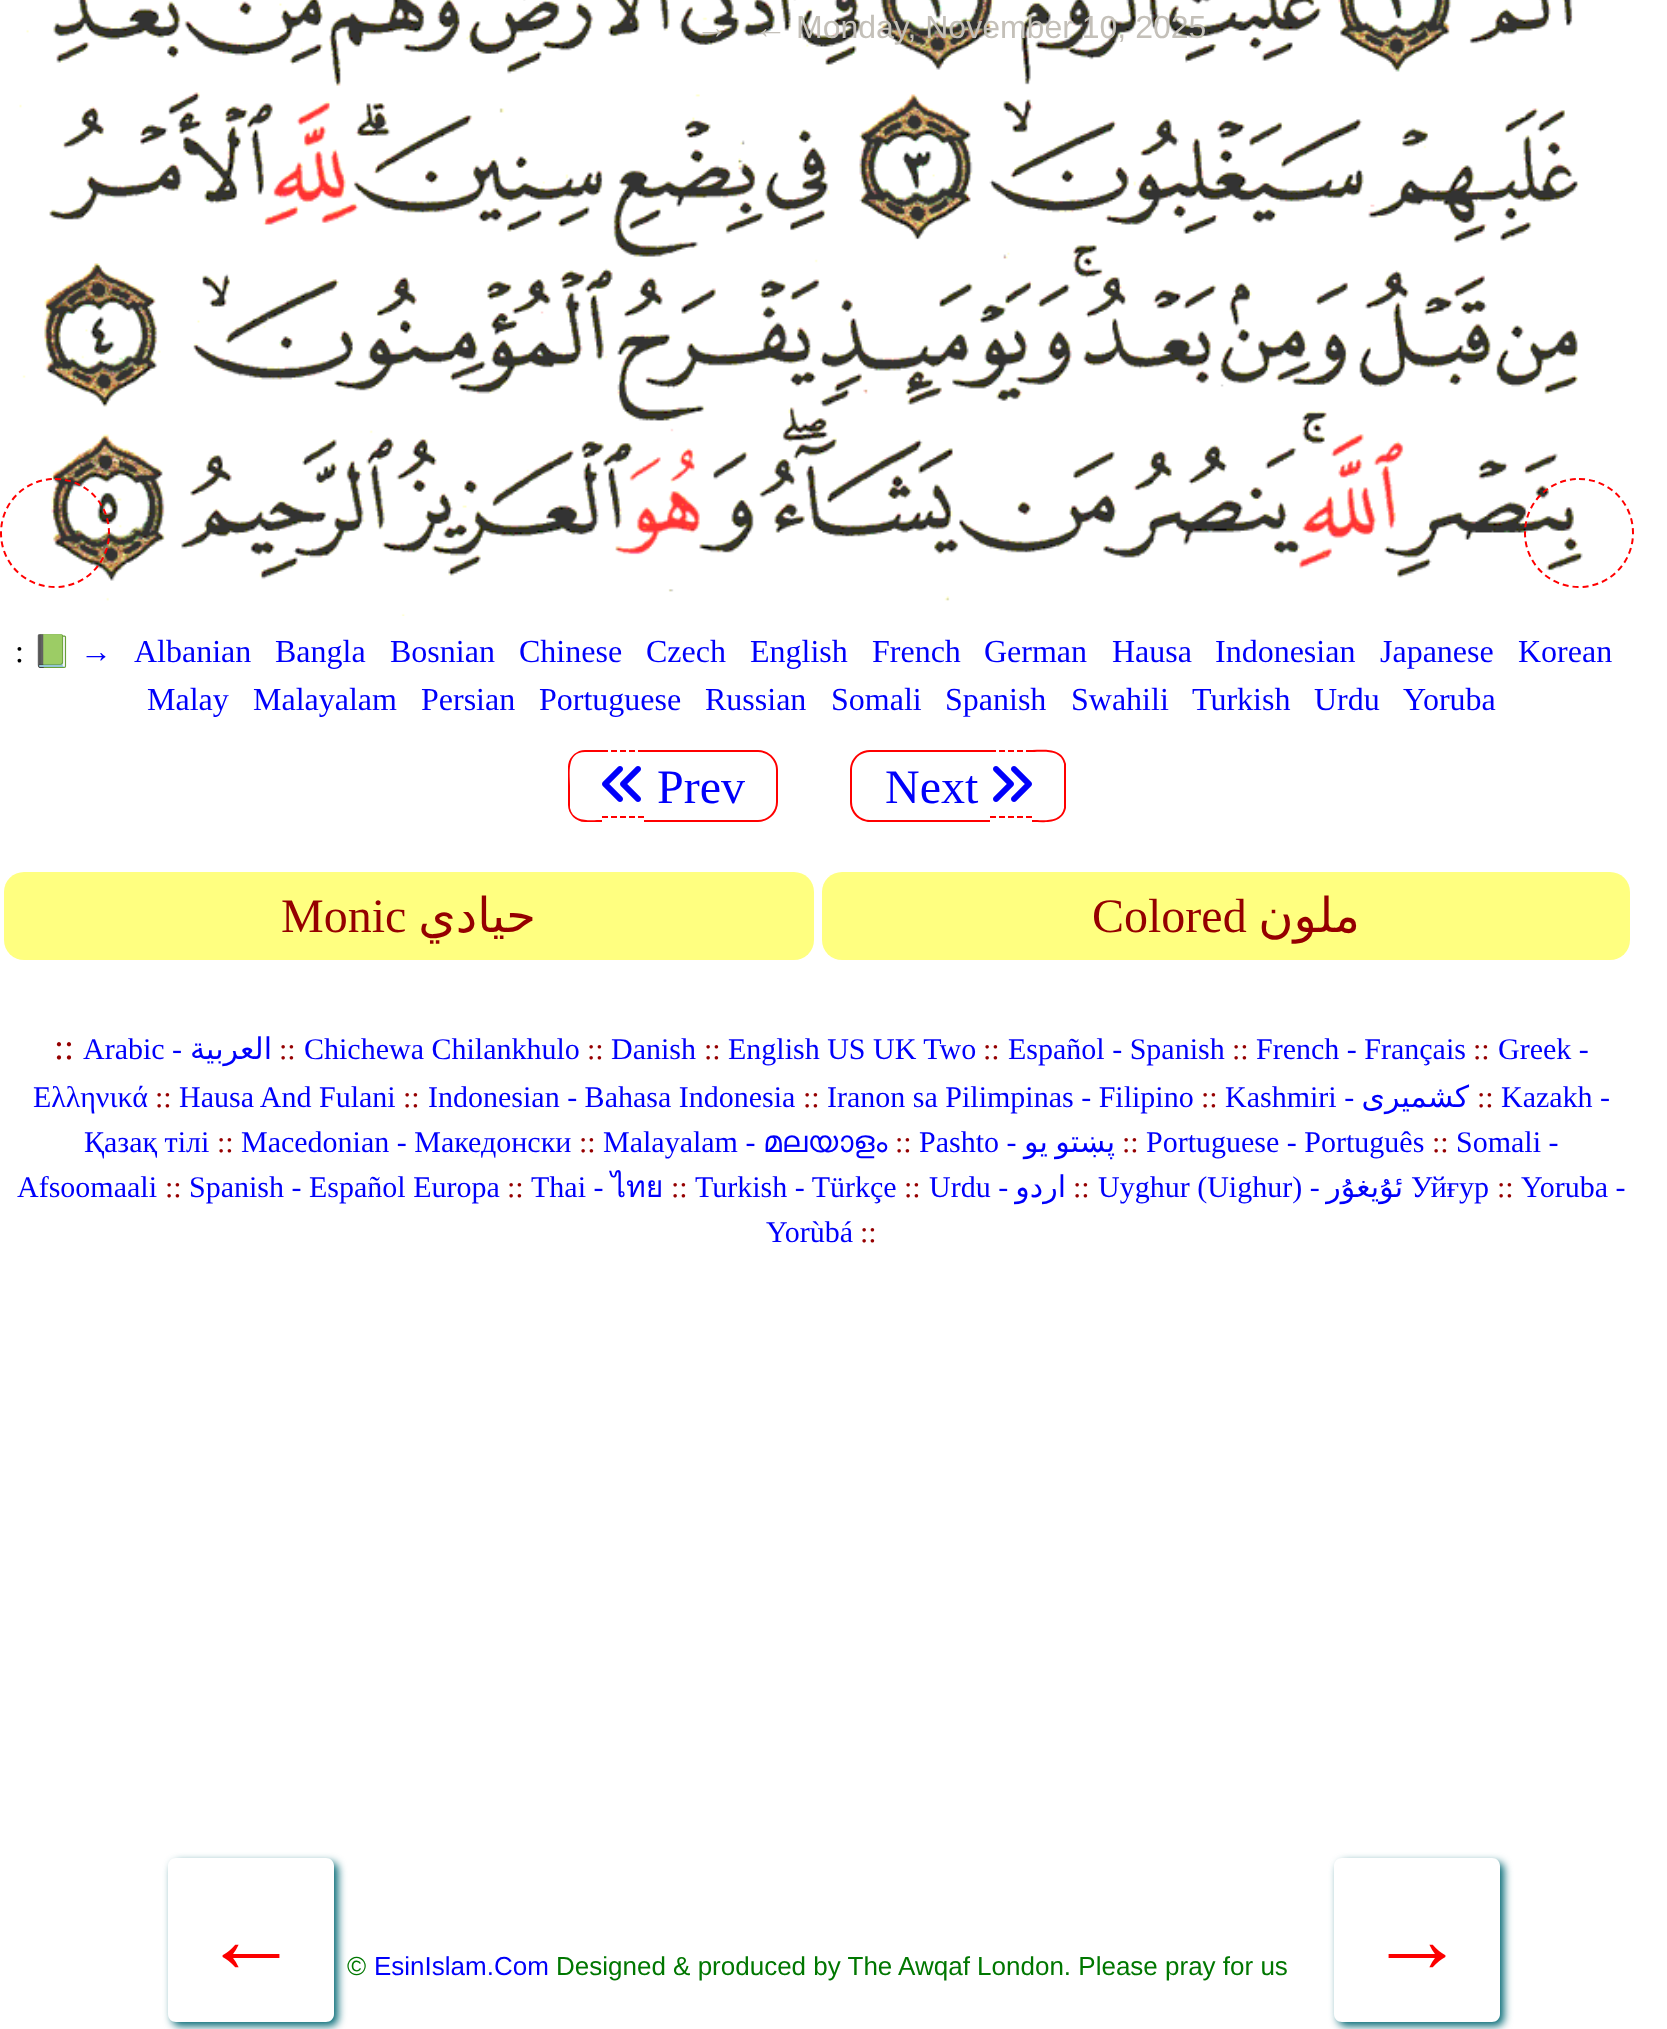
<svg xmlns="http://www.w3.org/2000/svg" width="1667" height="2029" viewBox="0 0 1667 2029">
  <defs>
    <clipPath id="clip1"><path d="M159 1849H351V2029H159ZM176 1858H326C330.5 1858 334 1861.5 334 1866V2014C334 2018.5 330.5 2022 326 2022H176C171.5 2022 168 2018.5 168 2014V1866C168 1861.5 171.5 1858 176 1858Z" clip-rule="evenodd"/></clipPath>
    <clipPath id="clip2"><path d="M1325 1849H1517V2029H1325ZM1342 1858H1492C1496.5 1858 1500 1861.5 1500 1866V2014C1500 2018.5 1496.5 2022 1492 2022H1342C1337.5 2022 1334 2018.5 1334 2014V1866C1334 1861.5 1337.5 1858 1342 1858Z" clip-rule="evenodd"/></clipPath>
  </defs>
  <rect width="100%" height="100%" fill="#fff"/>
  <image x="19" y="0" width="1564" height="616" href="img/1.png"/>
  <path d="M55 479C85 479 109 503 109 533C109 563 85 587 55 587C25 587 1 563 1 533C1 503 25 479 55 479Z" fill="none" stroke="#f00" stroke-width="2" stroke-dasharray="6 4"/>
  <path d="M1579 479C1609 479 1633 503 1633 533C1633 563 1609 587 1579 587C1549 587 1525 563 1525 533C1525 503 1549 479 1579 479Z" fill="none" stroke="#f00" stroke-width="2" stroke-dasharray="6 4"/>
  <g clip-path="url(#clip1)">
    <rect x="172" y="1862" width="166" height="164" rx="8" fill="#006773" filter="blur(4px)"/>
  </g>
  <g clip-path="url(#clip2)">
    <rect x="1338" y="1862" width="166" height="164" rx="8" fill="#006773" filter="blur(4px)"/>
  </g>
  <path d="M585 750H602V822H585C576 822 568 814 568 805V767C568 758 576 750 585 750ZM585 752H602V820C591 820 573 823 570 808V786C570 774 566 752 585 752Z" fill="#f00" fill-rule="evenodd"/>
  <path d="M602 751H644" fill="none" stroke="#f00" stroke-width="2" stroke-dasharray="6 3"/>
  <path d="M602 817H644" fill="none" stroke="#f00" stroke-width="2" stroke-dasharray="6 3"/>
  <path d="M644 750H758C769 750 778 759 778 770V802C778 813 769 822 758 822H644ZM644 752H758C768 752 776 760 776 770V802C776 812 768 820 758 820H644Z" fill="#f00" fill-rule="evenodd"/>
  <image x="602" y="766" width="39" height="36" href="img/2.png"/>
  <path d="M870 750H990V822H870C859 822 850 813 850 802V770C850 759 859 750 870 750ZM870 752H990V820H870C860 820 852 812 852 802V770C852 760 860 752 870 752Z" fill="#f00" fill-rule="evenodd"/>
  <path d="M990 751H1032" fill="none" stroke="#f00" stroke-width="2" stroke-dasharray="6 3"/>
  <path d="M990 817H1032" fill="none" stroke="#f00" stroke-width="2" stroke-dasharray="6 3"/>
  <path d="M1032 750C1044 750 1062 747 1066 764V808C1062 825 1044 822 1032 822ZM1032 752C1043 752 1061 749 1064 764V808C1061 823 1043 820 1032 820Z" fill="#f00" fill-rule="evenodd"/>
  <image x="993" y="766" width="39" height="36" href="img/3.png"/>
  <rect x="4" y="872" width="810" height="88" rx="20" fill="#ffff80"/>
  <rect x="822" y="872" width="808" height="88" rx="20" fill="#ffff80"/>
  <g font-family="Liberation Sans" font-size="32" fill="#c4c0b9">
    <text x="696" y="38" xml:space="preserve">→   ←</text>
    <text x="796" y="38">Monday, November 10, 2025</text>
  </g>
  <text x="15" y="662" font-family="Liberation Serif" font-size="32" fill="#000">:</text>
  <text x="32" y="662" font-family="Noto Color Emoji" font-size="32" fill="#0000fa">📗</text>
  <g font-family="Liberation Serif" font-size="32" fill="#0000fa">
    <text x="80" y="662">→</text>
    <text x="134" y="662">Albanian</text>
    <text x="275" y="662">Bangla</text>
    <text x="390" y="662">Bosnian</text>
    <text x="519" y="662">Chinese</text>
    <text x="646" y="662">Czech</text>
    <text x="750" y="662">English</text>
    <text x="872" y="662">French</text>
    <text x="984" y="662">German</text>
    <text x="1112" y="662">Hausa</text>
    <text x="1215" y="662">Indonesian</text>
    <text x="1380" y="662">Japanese</text>
    <text x="1518" y="662">Korean</text>
    <text x="147" y="710">Malay</text>
    <text x="253" y="710">Malayalam</text>
    <text x="421" y="710">Persian</text>
    <text x="539" y="710">Portuguese</text>
    <text x="705" y="710">Russian</text>
    <text x="831" y="710">Somali</text>
    <text x="945" y="710">Spanish</text>
    <text x="1071" y="710">Swahili</text>
    <text x="1192" y="710">Turkish</text>
    <text x="1314" y="710">Urdu</text>
    <text x="1403" y="710">Yoruba</text>
  </g>
  <g font-family="Liberation Serif" font-size="96" font-weight="bold" fill="#fc0000">
    <text x="203" y="1972">←</text>
    <text x="1369" y="1972">→</text>
  </g>
  <g font-family="Liberation Serif" font-size="48" fill="#0000fa">
    <text x="657" y="803">Prev</text>
    <text x="885" y="803">Next</text>
  </g>
  <text x="281" y="932" font-family="Liberation Serif" font-size="48" fill="#950000">Monic</text>
  <text x="536" y="932" font-family="DejaVu Sans" font-size="48" direction="rtl" fill="#950000">حيادي</text>
  <text x="1092" y="932" font-family="Liberation Serif" font-size="48" fill="#950000">Colored</text>
  <text x="1360" y="932" font-family="DejaVu Sans" font-size="48" direction="rtl" fill="#950000">ملون</text>
  <text x="54" y="1059" font-family="Liberation Serif" font-size="36" fill="#950000">::</text>
  <text x="83" y="1059" font-family="Liberation Serif" font-size="30" fill="#0000fa">Arabic -</text>
  <text x="272" y="1059" font-family="DejaVu Sans" font-size="30" direction="rtl" fill="#0000fa">العربية</text>
  <text x="279" y="1059" font-family="Liberation Serif" font-size="30" fill="#950000">::</text>
  <text x="304" y="1059" font-family="Liberation Serif" font-size="30" fill="#0000fa">Chichewa Chilankhulo</text>
  <text x="587" y="1059" font-family="Liberation Serif" font-size="30" fill="#950000">::</text>
  <text x="611" y="1059" font-family="Liberation Serif" font-size="30" fill="#0000fa">Danish</text>
  <text x="704" y="1059" font-family="Liberation Serif" font-size="30" fill="#950000">::</text>
  <text x="728" y="1059" font-family="Liberation Serif" font-size="30" fill="#0000fa">English US UK Two</text>
  <text x="983" y="1059" font-family="Liberation Serif" font-size="30" fill="#950000">::</text>
  <text x="1008" y="1059" font-family="Liberation Serif" font-size="30" fill="#0000fa">Español - Spanish</text>
  <text x="1232" y="1059" font-family="Liberation Serif" font-size="30" fill="#950000">::</text>
  <text x="1256" y="1059" font-family="Liberation Serif" font-size="30" fill="#0000fa">French - Français</text>
  <text x="1473" y="1059" font-family="Liberation Serif" font-size="30" fill="#950000">::</text>
  <g font-family="Liberation Serif" font-size="30" fill="#0000fa">
    <text x="1498" y="1059">Greek -</text>
    <text x="33" y="1107">Ελληνικά</text>
  </g>
  <text x="155" y="1107" font-family="Liberation Serif" font-size="30" fill="#950000">::</text>
  <text x="179" y="1107" font-family="Liberation Serif" font-size="30" fill="#0000fa">Hausa And Fulani</text>
  <text x="403" y="1107" font-family="Liberation Serif" font-size="30" fill="#950000">::</text>
  <text x="428" y="1107" font-family="Liberation Serif" font-size="30" fill="#0000fa">Indonesian - Bahasa Indonesia</text>
  <text x="803" y="1107" font-family="Liberation Serif" font-size="30" fill="#950000">::</text>
  <text x="827" y="1107" font-family="Liberation Serif" font-size="30" fill="#0000fa">Iranon sa Pilimpinas - Filipino</text>
  <text x="1201" y="1107" font-family="Liberation Serif" font-size="30" fill="#950000">::</text>
  <text x="1225" y="1107" font-family="Liberation Serif" font-size="30" fill="#0000fa">Kashmiri -</text>
  <text x="1469" y="1107" font-family="DejaVu Sans" font-size="30" direction="rtl" fill="#0000fa">کشمیری</text>
  <text x="1477" y="1107" font-family="Liberation Serif" font-size="30" fill="#950000">::</text>
  <g font-family="Liberation Serif" font-size="30" fill="#0000fa">
    <text x="1501" y="1107">Kazakh -</text>
    <text x="84" y="1152">Қазақ тілі</text>
  </g>
  <text x="217" y="1152" font-family="Liberation Serif" font-size="30" fill="#950000">::</text>
  <text x="241" y="1152" font-family="Liberation Serif" font-size="30" fill="#0000fa">Macedonian - Македонски</text>
  <text x="579" y="1152" font-family="Liberation Serif" font-size="30" fill="#950000">::</text>
  <text x="603" y="1152" font-family="Liberation Serif" font-size="30" fill="#0000fa">Malayalam -</text>
  <text x="763" y="1152" font-family="FreeSans" font-size="30" fill="#0000fa">മലയാളം</text>
  <text x="895" y="1152" font-family="Liberation Serif" font-size="30" fill="#950000">::</text>
  <text x="919" y="1152" font-family="Liberation Serif" font-size="30" fill="#0000fa">Pashto -</text>
  <text x="1115" y="1152" word-spacing="-2" font-family="DejaVu Sans" font-size="30" direction="rtl" fill="#0000fa">پښتو یو</text>
  <text x="1122" y="1152" font-family="Liberation Serif" font-size="30" fill="#950000">::</text>
  <text x="1146" y="1152" font-family="Liberation Serif" font-size="30" fill="#0000fa">Portuguese - Português</text>
  <text x="1432" y="1152" font-family="Liberation Serif" font-size="30" fill="#950000">::</text>
  <g font-family="Liberation Serif" font-size="30" fill="#0000fa">
    <text x="1456" y="1152">Somali -</text>
    <text x="17" y="1197">Afsoomaali</text>
  </g>
  <text x="165" y="1197" font-family="Liberation Serif" font-size="30" fill="#950000">::</text>
  <text x="189" y="1197" font-family="Liberation Serif" font-size="30" fill="#0000fa">Spanish - Español Europa</text>
  <text x="507" y="1197" font-family="Liberation Serif" font-size="30" fill="#950000">::</text>
  <text x="531" y="1197" font-family="Liberation Serif" font-size="30" fill="#0000fa">Thai -</text>
  <text x="611" y="1197" font-family="Loma" font-size="30" fill="#0000fa">ไทย</text>
  <text x="671" y="1197" font-family="Liberation Serif" font-size="30" fill="#950000">::</text>
  <text x="695" y="1197" font-family="Liberation Serif" font-size="30" fill="#0000fa">Turkish - Türkçe</text>
  <text x="904" y="1197" font-family="Liberation Serif" font-size="30" fill="#950000">::</text>
  <text x="929" y="1197" font-family="Liberation Serif" font-size="30" fill="#0000fa">Urdu -</text>
  <text x="1066" y="1197" font-family="DejaVu Sans" font-size="30" direction="rtl" fill="#0000fa">اردو</text>
  <text x="1073" y="1197" font-family="Liberation Serif" font-size="30" fill="#950000">::</text>
  <text x="1098" y="1197" font-family="Liberation Serif" font-size="30" fill="#0000fa">Uyghur (Uighur) -</text>
  <text x="1403" y="1197" font-family="DejaVu Sans" font-size="30" direction="rtl" fill="#0000fa">ئۇيغۇر</text>
  <text x="1411" y="1197" font-family="Liberation Serif" font-size="30" fill="#0000fa">Уйғур</text>
  <text x="1497" y="1197" font-family="Liberation Serif" font-size="30" fill="#950000">::</text>
  <g font-family="Liberation Serif" font-size="30" fill="#0000fa">
    <text x="1521" y="1197">Yoruba -</text>
    <text x="766" y="1242">Yorùbá</text>
  </g>
  <text x="860" y="1242" font-family="Liberation Serif" font-size="30" fill="#950000">::</text>
  <text x="347" y="1975" font-family="Liberation Sans" font-size="26" fill="#070">©</text>
  <text x="374" y="1975" font-family="Liberation Sans" font-size="26" fill="#0000fa">EsinIslam.Com</text>
  <text x="556" y="1975" font-family="Liberation Sans" font-size="26" fill="#070">Designed &amp; produced by The Awqaf London. Please pray for us</text>
</svg>
